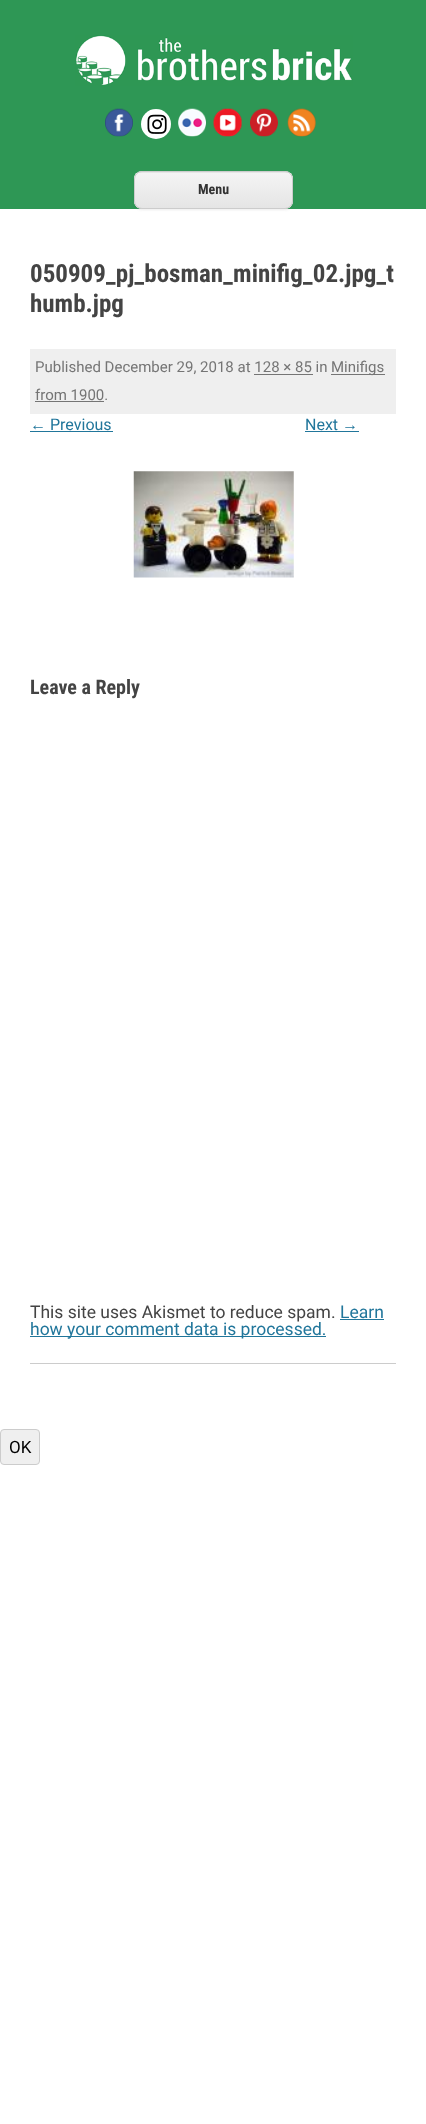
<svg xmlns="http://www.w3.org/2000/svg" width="426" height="2124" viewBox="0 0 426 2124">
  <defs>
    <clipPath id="clip1"><rect x="134" y="171" width="159" height="38" rx="8"/></clipPath>
    <linearGradient id="g1" gradientUnits="userSpaceOnUse" x1="213" y1="173" x2="213" y2="208"><stop offset="0" stop-color="#f4f4f4"/><stop offset="1" stop-color="#e5e5e5"/></linearGradient>
  </defs>
  <rect width="100%" height="100%" fill="#fff"/>
  <path d="M0 0h426v209H0z" fill="#2e9755"/>
  <image x="75" y="35" width="278" height="51" href="img/1.png"/>
  <image x="105" y="108" width="28" height="29" href="img/2.png"/>
  <circle cx="156" cy="124" r="15" fill="#fff"/>
  <image x="147" y="114" width="20" height="20" href="img/3.png"/>
  <image x="178" y="108" width="28" height="29" href="img/4.png"/>
  <image x="213" y="108" width="29" height="29" href="img/5.png"/>
  <image x="250" y="108" width="28" height="29" href="img/6.png"/>
  <image x="287" y="108" width="29" height="29" href="img/7.png"/>
  <rect x="134" y="173" width="159" height="37" rx="8" fill="#4040401a" filter="blur(1px)"/>
  <rect x="134" y="171" width="159" height="38" rx="8" fill="#e6e6e6"/>
  <g clip-path="url(#clip1)">
    <path d="M134 173h159v35H134z" fill="url(#g1)"/>
  </g>
  <rect x="134.5" y="171.5" width="158" height="37" rx="7.5" fill="none" stroke="#ccc"/>
  <path d="M30 349h366v65H30z" fill="#efefef"/>
  <path d="M331 374h54v1H331z" fill="#757575"/>
  <path d="M254 374h59v1H254z" fill="#757575"/>
  <path d="M35 401h69v1H35z" fill="#757575"/>
  <path d="M30 431h83v1H30z" fill="#21769b"/>
  <path d="M305 431h54v1H305z" fill="#21769b"/>
  <image x="133" y="471" width="161" height="107" href="img/8.png"/>
  <path d="M340 1319h44v1H340z" fill="#21769b"/>
  <path d="M30 1336h296v1H30z" fill="#21769b"/>
  <path d="M30 1363h366v1H30z" fill="#ccc"/>
  <rect x="0.5" y="1429.5" width="39" height="35" rx="3.5" fill="#efefef" stroke="#ccc"/>
  <text x="198" y="194" font-family="Roboto Condensed" font-size="14" font-weight="bold" fill="#333">Menu</text>
  <g font-family="Roboto Condensed" font-size="25" font-weight="bold" fill="#444">
    <text x="30" y="282">050909_pj_bosman_minifig_02.jpg_t</text>
    <text x="30" y="312">humb.jpg</text>
  </g>
  <g font-family="Roboto" font-size="15" fill="#757575">
    <text x="35" y="372">Published December 29, 2018 at 128 × 85 in</text>
    <text x="331" y="372">Minifigs</text>
    <text x="35" y="400">from 1900.</text>
  </g>
  <text x="30" y="430" font-family="Liberation Sans" font-size="16" fill="#21769b">←</text>
  <g font-family="Roboto" font-size="16" fill="#21769b">
    <text x="50" y="430">Previous</text>
    <text x="305" y="430">Next</text>
  </g>
  <text x="342" y="430" font-family="Liberation Sans" font-size="16" fill="#21769b">→</text>
  <text x="30" y="694" font-family="Roboto Condensed" font-size="20" font-weight="bold" fill="#444">Leave a Reply</text>
  <text x="30" y="1318" font-family="Roboto" font-size="17.5" fill="#444">This site uses Akismet to reduce spam.</text>
  <g font-family="Roboto" font-size="17.5" fill="#21769b">
    <text x="340" y="1318">Learn</text>
    <text x="30" y="1335">how your comment data is processed.</text>
  </g>
  <text x="9" y="1453" font-family="Roboto" font-size="17" fill="#000">OK</text>
</svg>
